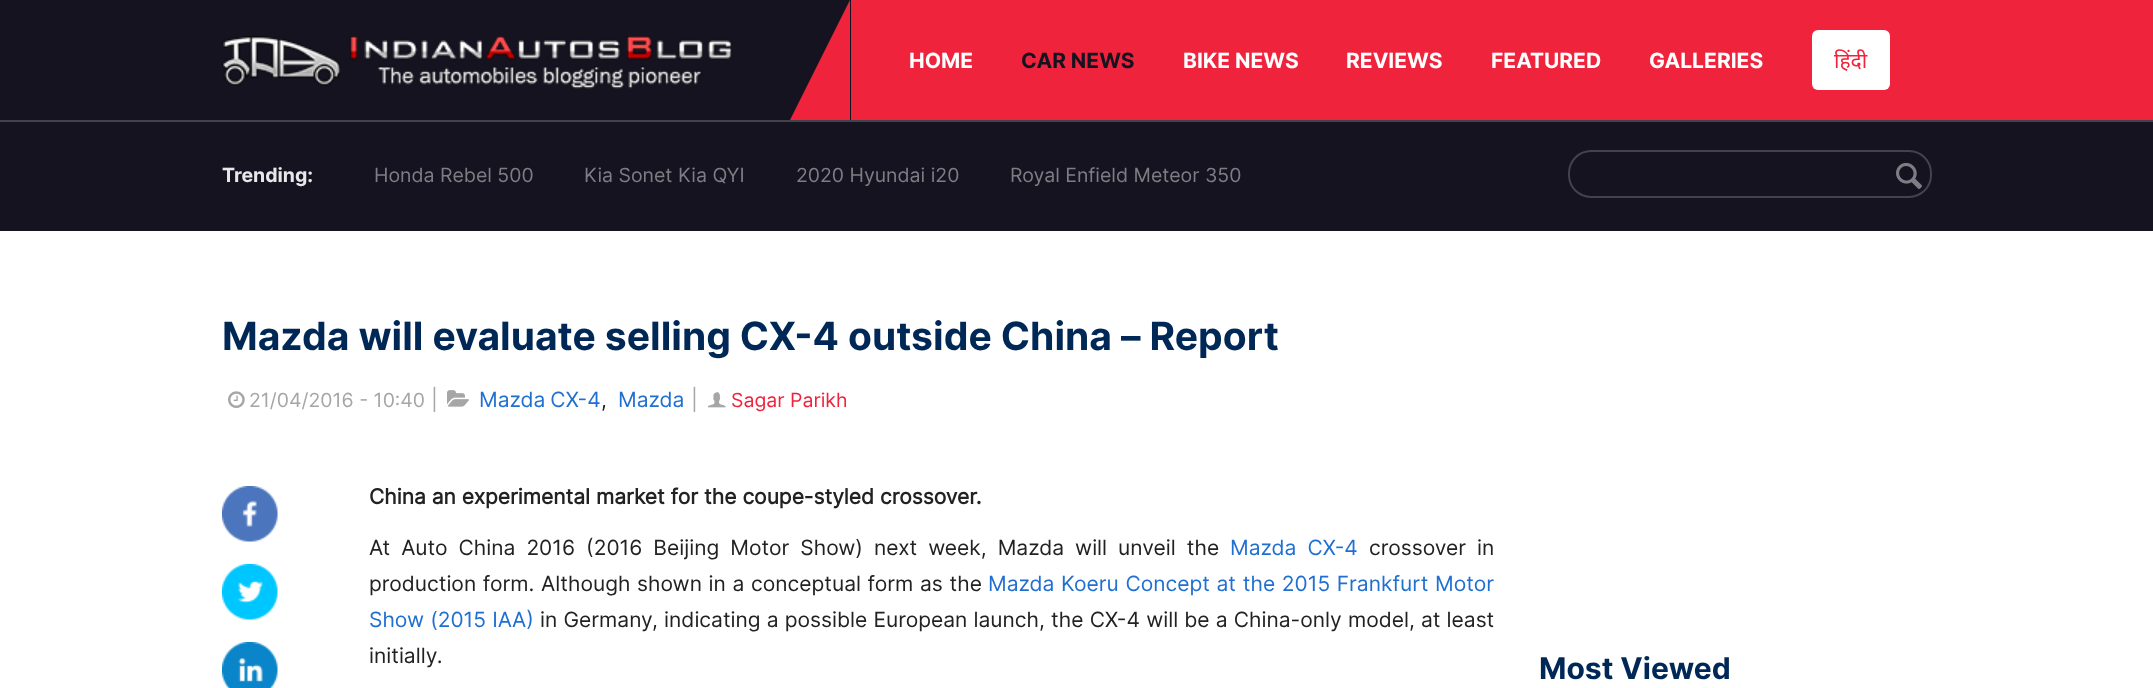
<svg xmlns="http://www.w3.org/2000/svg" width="2153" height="688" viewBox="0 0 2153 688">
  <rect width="100%" height="100%" fill="#fff"/>
  <path d="M0 0h851v120H0z" fill="#151320"/>
  <path d="M0 120h2153v2H0z" fill="#44424d"/>
  <path d="M851 0h1302v120H851z" fill="#ef233c"/>
  <image x="222" y="36" width="510" height="53" href="img/1.png"/>
  <path d="M850 0V120H790Z" fill="#ef233c"/>
  <rect x="1812" y="30" width="78" height="60" rx="6" fill="#fff"/>
  <path d="M0 122h2153v109H0z" fill="#151320"/>
  <rect x="1569" y="151" width="362" height="46" rx="22" fill="none" stroke="#44424d" stroke-width="2"/>
  <image x="1896" y="162" width="26" height="27" href="img/2.png"/>
  <image x="228" y="391" width="17" height="17" href="img/3.png"/>
  <image x="447" y="390" width="22" height="17" href="img/4.png"/>
  <image x="708" y="392" width="18" height="16" href="img/5.png"/>
  <image x="222" y="486" width="56" height="56" href="img/6.png"/>
  <image x="222" y="564" width="56" height="56" href="img/7.png"/>
  <image x="222" y="642" width="56" height="46" href="img/8.png"/>
  <text x="909" y="68" font-family="'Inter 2'" font-size="21" font-weight="bold" fill="#fff">HOME</text>
  <text x="1021" y="68" font-family="'Inter 2'" font-size="21" font-weight="bold" fill="#151320">CAR NEWS</text>
  <g font-family="'Inter 2'" font-size="21" font-weight="bold" fill="#fff">
    <text x="1183" y="68">BIKE NEWS</text>
    <text x="1346" y="68">REVIEWS</text>
    <text x="1491" y="68">FEATURED</text>
    <text x="1649" y="68">GALLERIES</text>
  </g>
  <text x="1834" y="68" font-family="Noto Sans" font-size="21" fill="#ef233c">हिंदी</text>
  <text x="222" y="182" font-family="'Inter 2'" font-size="19.5" font-weight="bold" fill="#e8e7e9">Trending:</text>
  <g font-family="Inter" font-size="19.5" fill="#7e7d84">
    <text x="374" y="182">Honda Rebel 500</text>
    <text x="584" y="182">Kia Sonet Kia QYI</text>
    <text x="796" y="182">2020 Hyundai i20</text>
    <text x="1010" y="182">Royal Enfield Meteor 350</text>
  </g>
  <text x="222" y="350" font-family="'Inter 2'" font-size="39" font-weight="bold" fill="#002856">Mazda will evaluate selling CX-4 outside China – Report</text>
  <text x="249" y="407" font-family="Inter" font-size="19.5" fill="#a6a6a6">21/04/2016 - 10:40</text>
  <text x="431" y="407" font-family="Inter" font-size="21" fill="#a6a6a6">|</text>
  <text x="479" y="407" word-spacing="-1" font-family="Inter" font-size="21" fill="#2070d2">Mazda CX-4</text>
  <text x="601" y="407" font-family="Inter" font-size="21" fill="#222">,</text>
  <text x="618" y="407" font-family="Inter" font-size="21" fill="#2070d2">Mazda</text>
  <text x="691" y="407" font-family="Inter" font-size="21" fill="#a6a6a6">|</text>
  <text x="731" y="407" font-family="Inter" font-size="19.5" fill="#ef233c">Sagar Parikh</text>
  <text x="369" y="504" font-family="Inter" font-size="21" font-weight="bold" fill="#222">China an experimental market for the coupe-styled crossover.</text>
  <text x="369" y="555" word-spacing="5.1" font-family="Inter" font-size="21" fill="#222">At Auto China 2016 (2016 Beijing Motor Show) next week, Mazda will unveil the</text>
  <text x="1230" y="555" word-spacing="5.1" font-family="Inter" font-size="21" fill="#2070d2">Mazda CX-4</text>
  <g font-family="Inter" font-size="21" fill="#222">
    <text x="1369" y="555" word-spacing="5.1">crossover in</text>
    <text x="369" y="591" word-spacing="0.75">production form. Although shown in a conceptual form as the</text>
  </g>
  <g font-family="Inter" font-size="21" fill="#2070d2">
    <text x="988" y="591" word-spacing="0.75">Mazda Koeru Concept at the 2015 Frankfurt Motor</text>
    <text x="369" y="627" word-spacing="0.25">Show (2015 IAA)</text>
  </g>
  <g font-family="Inter" font-size="21" fill="#222">
    <text x="540" y="627" word-spacing="0.25">in Germany, indicating a possible European launch, the CX-4 will be a China-only model, at least</text>
    <text x="369" y="663">initially.</text>
  </g>
  <text x="1539" y="679" font-family="'Inter 2'" font-size="30" font-weight="bold" fill="#002856">Most Viewed</text>
</svg>
